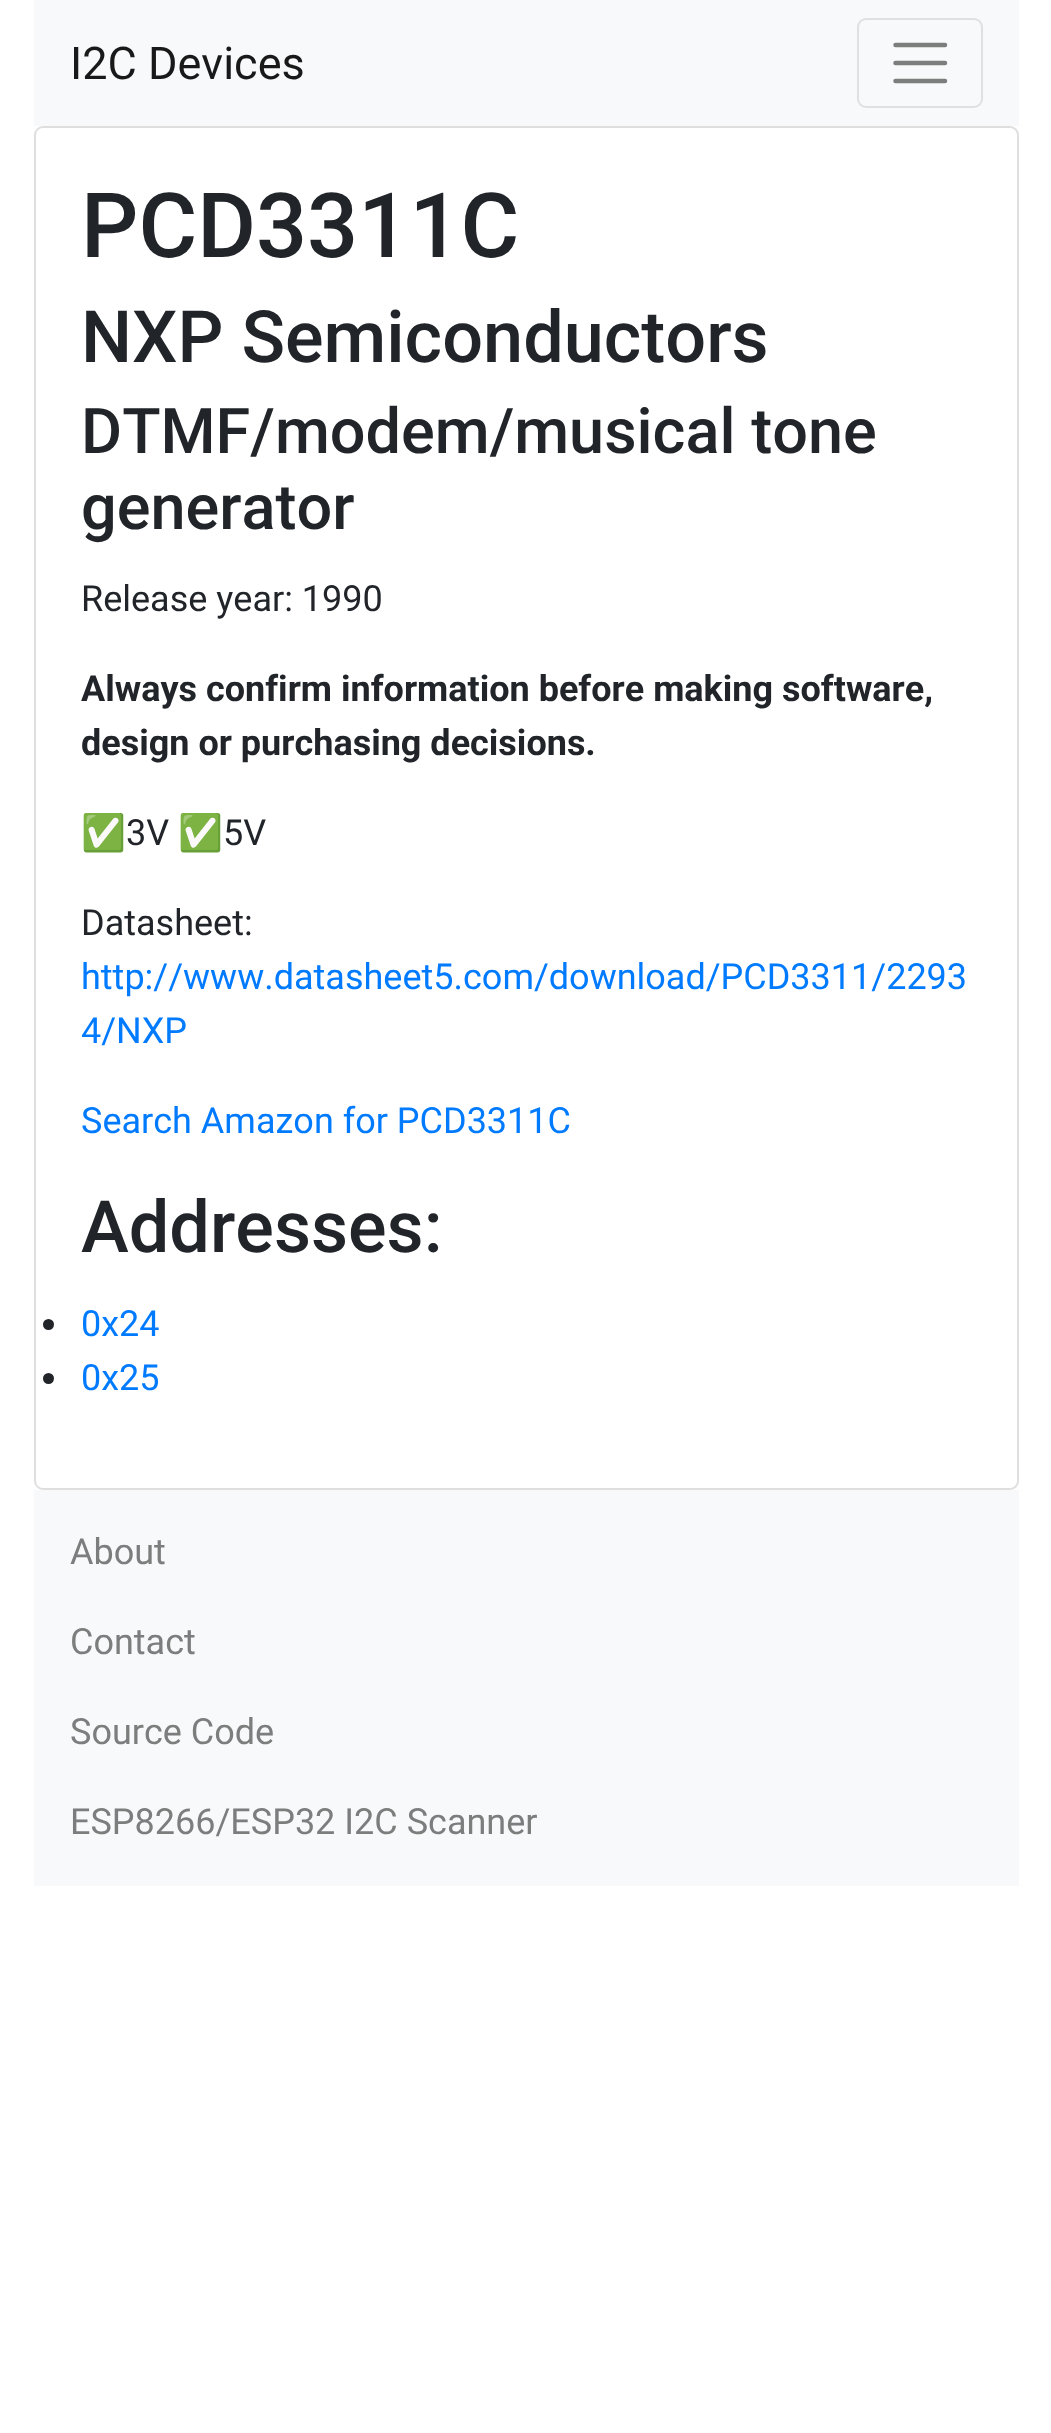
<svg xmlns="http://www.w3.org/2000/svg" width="1051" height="2433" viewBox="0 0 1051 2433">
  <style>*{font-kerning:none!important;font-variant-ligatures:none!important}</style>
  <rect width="100%" height="100%" fill="#fff"/>
  <path d="M34 0h985v126H34z" fill="#f8f9fa"/>
  <rect x="858" y="19" width="124" height="88" rx="8" fill="none" stroke="#dfe0e1" stroke-width="2"/>
  <path d="M895.5 45H945M895.5 63H945M895.5 81H945" fill="none" stroke="#7c7d7d" stroke-width="4.5" stroke-linecap="round"/>
  <rect x="35" y="127" width="983" height="1362" rx="8" fill="none" stroke="#dfdfdf" stroke-width="2"/>
  <circle cx="48.5" cy="1324.5" r="5.5" fill="#212529"/>
  <circle cx="48.5" cy="1378.5" r="5.5" fill="#212529"/>
  <path d="M34 1490h985v396H34z" fill="#f8f9fa"/>
  <text x="70" y="79" font-family="Roboto" font-size="45" fill="#191919">I2C Devices</text>
  <text x="81" y="257" font-family="Roboto" font-size="90" font-weight="500" fill="#212529">PCD3311C</text>
  <text x="81" y="362" font-family="Roboto" font-size="72" font-weight="500" fill="#212529">NXP Semiconductors</text>
  <g font-family="Roboto" font-size="63" font-weight="500" fill="#212529">
    <text x="81" y="453">DTMF/modem/musical tone</text>
    <text x="81" y="529">generator</text>
  </g>
  <text x="81" y="611" font-family="Roboto" font-size="36" fill="#212529">Release year: 1990</text>
  <g font-family="Roboto" font-size="36" font-weight="bold" fill="#212529">
    <text x="81" y="701">Always confirm information before making software,</text>
    <text x="81" y="755">design or purchasing decisions.</text>
  </g>
  <text x="81" y="845" font-family="Noto Color Emoji" font-size="36" fill="#212529">✅</text>
  <text x="126" y="845" font-family="Roboto" font-size="36" fill="#212529">3V</text>
  <text x="178" y="845" font-family="Noto Color Emoji" font-size="36" fill="#212529">✅</text>
  <g font-family="Roboto" font-size="36" fill="#212529">
    <text x="223" y="845">5V</text>
    <text x="81" y="935">Datasheet:</text>
  </g>
  <g font-family="Roboto" font-size="36" fill="#007bff">
    <text x="81" y="989">http://www.datasheet5.com/download/PCD3311/2293</text>
    <text x="81" y="1043">4/NXP</text>
    <text x="81" y="1133">Search Amazon for PCD3311C</text>
  </g>
  <text x="81" y="1252" font-family="Roboto" font-size="72" font-weight="500" fill="#212529">Addresses:</text>
  <g font-family="Roboto" font-size="36" fill="#007bff">
    <text x="81" y="1336">0x24</text>
    <text x="81" y="1390">0x25</text>
  </g>
  <g font-family="Roboto" font-size="36" fill="#7c7d7d">
    <text x="70" y="1564">About</text>
    <text x="70" y="1654">Contact</text>
    <text x="70" y="1744">Source Code</text>
    <text x="70" y="1834">ESP8266/ESP32 I2C Scanner</text>
  </g>
</svg>
